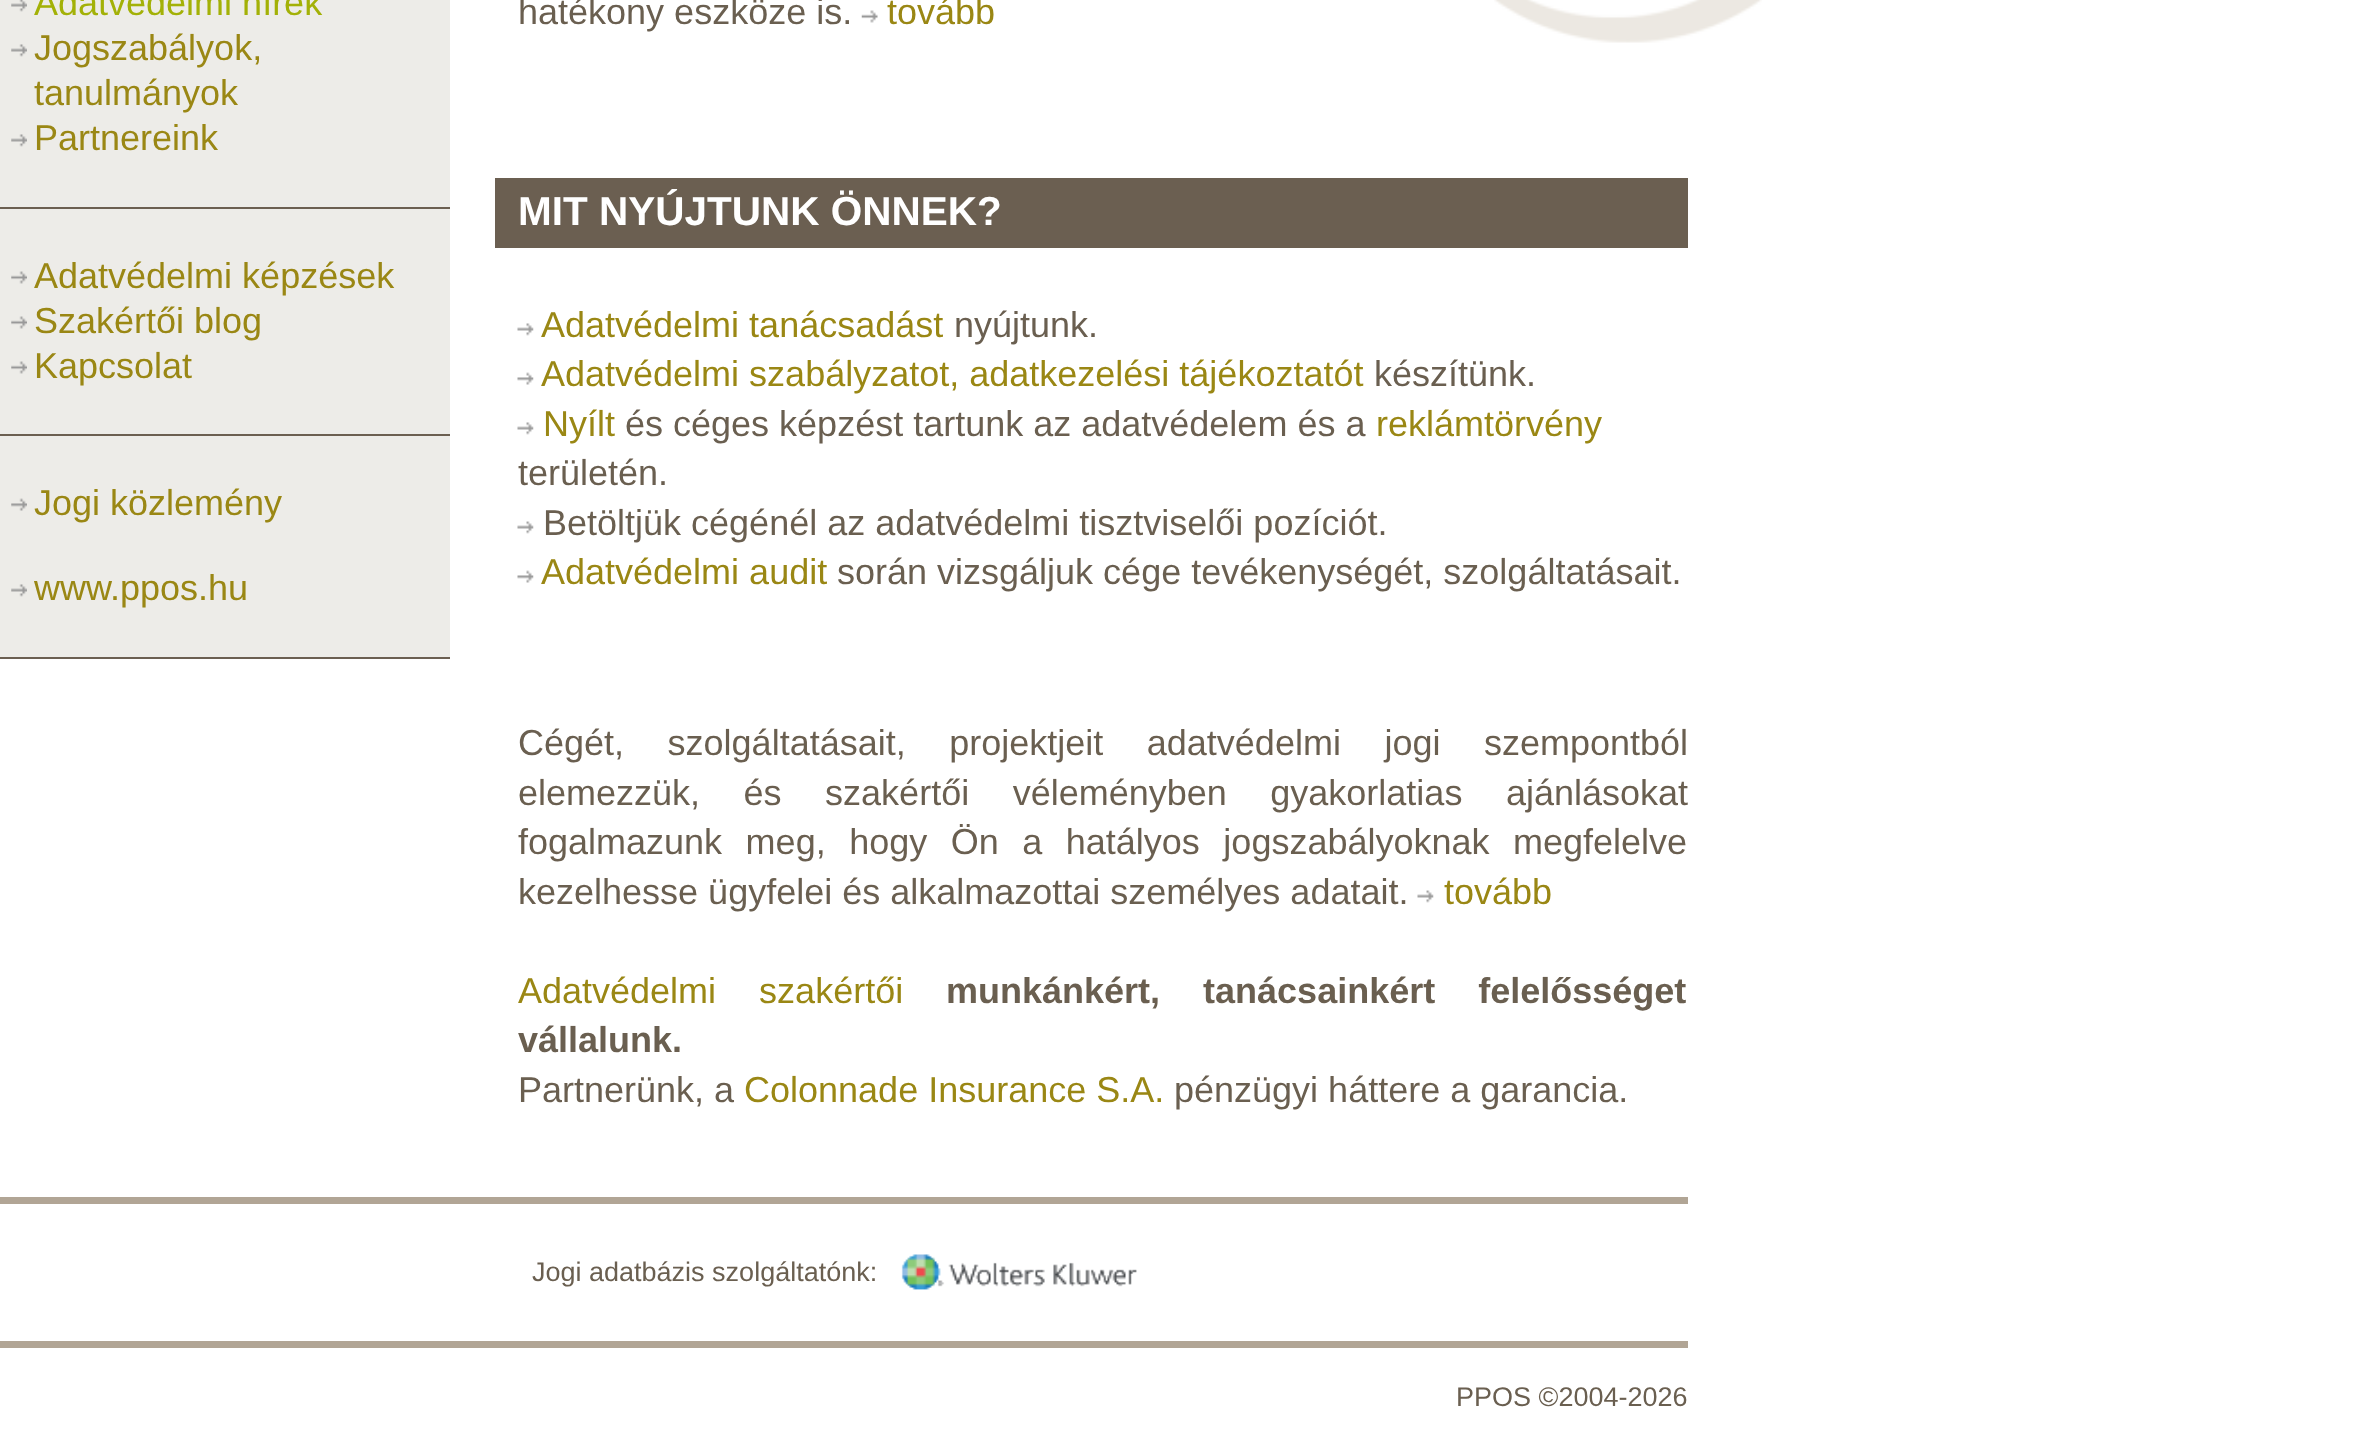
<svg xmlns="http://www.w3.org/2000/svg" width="2378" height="1445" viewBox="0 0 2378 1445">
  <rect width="100%" height="100%" fill="#fff"/>
  <image x="1494" y="0" width="268" height="43" href="img/1.png"/>
  <path d="M0 0h450v657H0z" fill="#edece8"/>
  <path d="M0 207h450v2H0z" fill="#6b5f51"/>
  <image x="11" y="0" width="16" height="12" href="img/2.png"/>
  <image x="11" y="44" width="16" height="13" href="img/3.png"/>
  <image x="11" y="134" width="16" height="13" href="img/4.png"/>
  <path d="M0 434h450v2H0z" fill="#6b5f51"/>
  <image x="11" y="271" width="16" height="13" href="img/5.png"/>
  <image x="11" y="316" width="16" height="13" href="img/5.png"/>
  <image x="11" y="361" width="16" height="13" href="img/5.png"/>
  <path d="M0 657h450v2H0z" fill="#6b5f51"/>
  <image x="11" y="498" width="16" height="13" href="img/6.png"/>
  <image x="11" y="584" width="16" height="13" href="img/3.png"/>
  <image x="861" y="10" width="17" height="13" href="img/7.png"/>
  <path d="M495 178h1193v70H495z" fill="#6b5f51"/>
  <image x="517" y="323" width="17" height="13" href="img/8.png"/>
  <image x="517" y="372" width="17" height="13" href="img/9.png"/>
  <image x="517" y="422" width="17" height="13" href="img/8.png"/>
  <image x="517" y="521" width="17" height="13" href="img/10.png"/>
  <image x="517" y="570" width="17" height="13" href="img/9.png"/>
  <image x="1417" y="890" width="17" height="13" href="img/11.png"/>
  <path d="M0 1197h1688v7H0z" fill="#b1a595"/>
  <path d="M0 1341h1688v7H0z" fill="#b1a595"/>
  <image x="901" y="1254" width="236" height="36" href="img/12.png"/>
  <text x="34" y="15" font-family="Liberation Sans" font-size="36" fill="#a3b107">Adatvédelmi hírek</text>
  <g font-family="Liberation Sans" font-size="36" fill="#9a8714">
    <text x="34" y="60">Jogszabályok,</text>
    <text x="34" y="105">tanulmányok</text>
    <text x="34" y="150">Partnereink</text>
    <text x="34" y="288">Adatvédelmi képzések</text>
    <text x="34" y="333">Szakértői blog</text>
    <text x="34" y="378">Kapcsolat</text>
    <text x="34" y="515">Jogi közlemény</text>
    <text x="34" y="600">www.ppos.hu</text>
  </g>
  <text x="518" y="24" font-family="Liberation Sans" font-size="36" fill="#6a5f50">hatékony eszköze is.</text>
  <text x="887" y="24" font-family="Liberation Sans" font-size="36" fill="#9a8714">tovább</text>
  <text x="518" y="225" font-family="Liberation Sans" font-size="40.5" font-weight="bold" fill="#fff">MIT NYÚJTUNK ÖNNEK?</text>
  <text x="541" y="337" font-family="Liberation Sans" font-size="36" fill="#9a8714">Adatvédelmi tanácsadást</text>
  <text x="954" y="337" font-family="Liberation Sans" font-size="36" fill="#6a5f50">nyújtunk.</text>
  <text x="541" y="386" font-family="Liberation Sans" font-size="36" fill="#9a8714">Adatvédelmi szabályzatot, adatkezelési tájékoztatót</text>
  <text x="1374" y="386" font-family="Liberation Sans" font-size="36" fill="#6a5f50">készítünk.</text>
  <text x="543" y="436" font-family="Liberation Sans" font-size="36" fill="#9a8714">Nyílt</text>
  <text x="625" y="436" font-family="Liberation Sans" font-size="36" fill="#6a5f50">és céges képzést tartunk az adatvédelem és a</text>
  <text x="1376" y="436" font-family="Liberation Sans" font-size="36" fill="#9a8714">reklámtörvény</text>
  <g font-family="Liberation Sans" font-size="36" fill="#6a5f50">
    <text x="518" y="485">területén.</text>
    <text x="543" y="535">Betöltjük cégénél az adatvédelmi tisztviselői pozíciót.</text>
  </g>
  <text x="541" y="584" font-family="Liberation Sans" font-size="36" fill="#9a8714">Adatvédelmi audit</text>
  <g font-family="Liberation Sans" font-size="36" fill="#6a5f50">
    <text x="837" y="584">során vizsgáljuk cége tevékenységét, szolgáltatásait.</text>
    <text x="518" y="755" word-spacing="33.5">Cégét, szolgáltatásait, projektjeit adatvédelmi jogi szempontból</text>
    <text x="518" y="805" word-spacing="33.5">elemezzük, és szakértői véleményben gyakorlatias ajánlásokat</text>
    <text x="518" y="854" word-spacing="13.5">fogalmazunk meg, hogy Ön a hatályos jogszabályoknak megfelelve</text>
    <text x="518" y="904">kezelhesse ügyfelei és alkalmazottai személyes adatait.</text>
  </g>
  <g font-family="Liberation Sans" font-size="36" fill="#9a8714">
    <text x="1444" y="904">tovább</text>
    <text x="518" y="1003" word-spacing="33">Adatvédelmi szakértői</text>
  </g>
  <g font-family="Liberation Sans" font-size="36" font-weight="bold" fill="#6a5f50">
    <text x="946" y="1003" word-spacing="33">munkánkért, tanácsainkért felelősséget</text>
    <text x="518" y="1052">vállalunk.</text>
  </g>
  <text x="518" y="1102" font-family="Liberation Sans" font-size="36" fill="#6a5f50">Partnerünk, a</text>
  <text x="744" y="1102" font-family="Liberation Sans" font-size="36" fill="#9a8714">Colonnade Insurance S.A.</text>
  <text x="1174" y="1102" font-family="Liberation Sans" font-size="36" fill="#6a5f50">pénzügyi háttere a garancia.</text>
  <g font-family="Liberation Sans" font-size="27" fill="#6a5f50">
    <text x="532" y="1281">Jogi adatbázis szolgáltatónk:</text>
    <text x="1456" y="1406">PPOS ©2004-2026</text>
  </g>
</svg>
